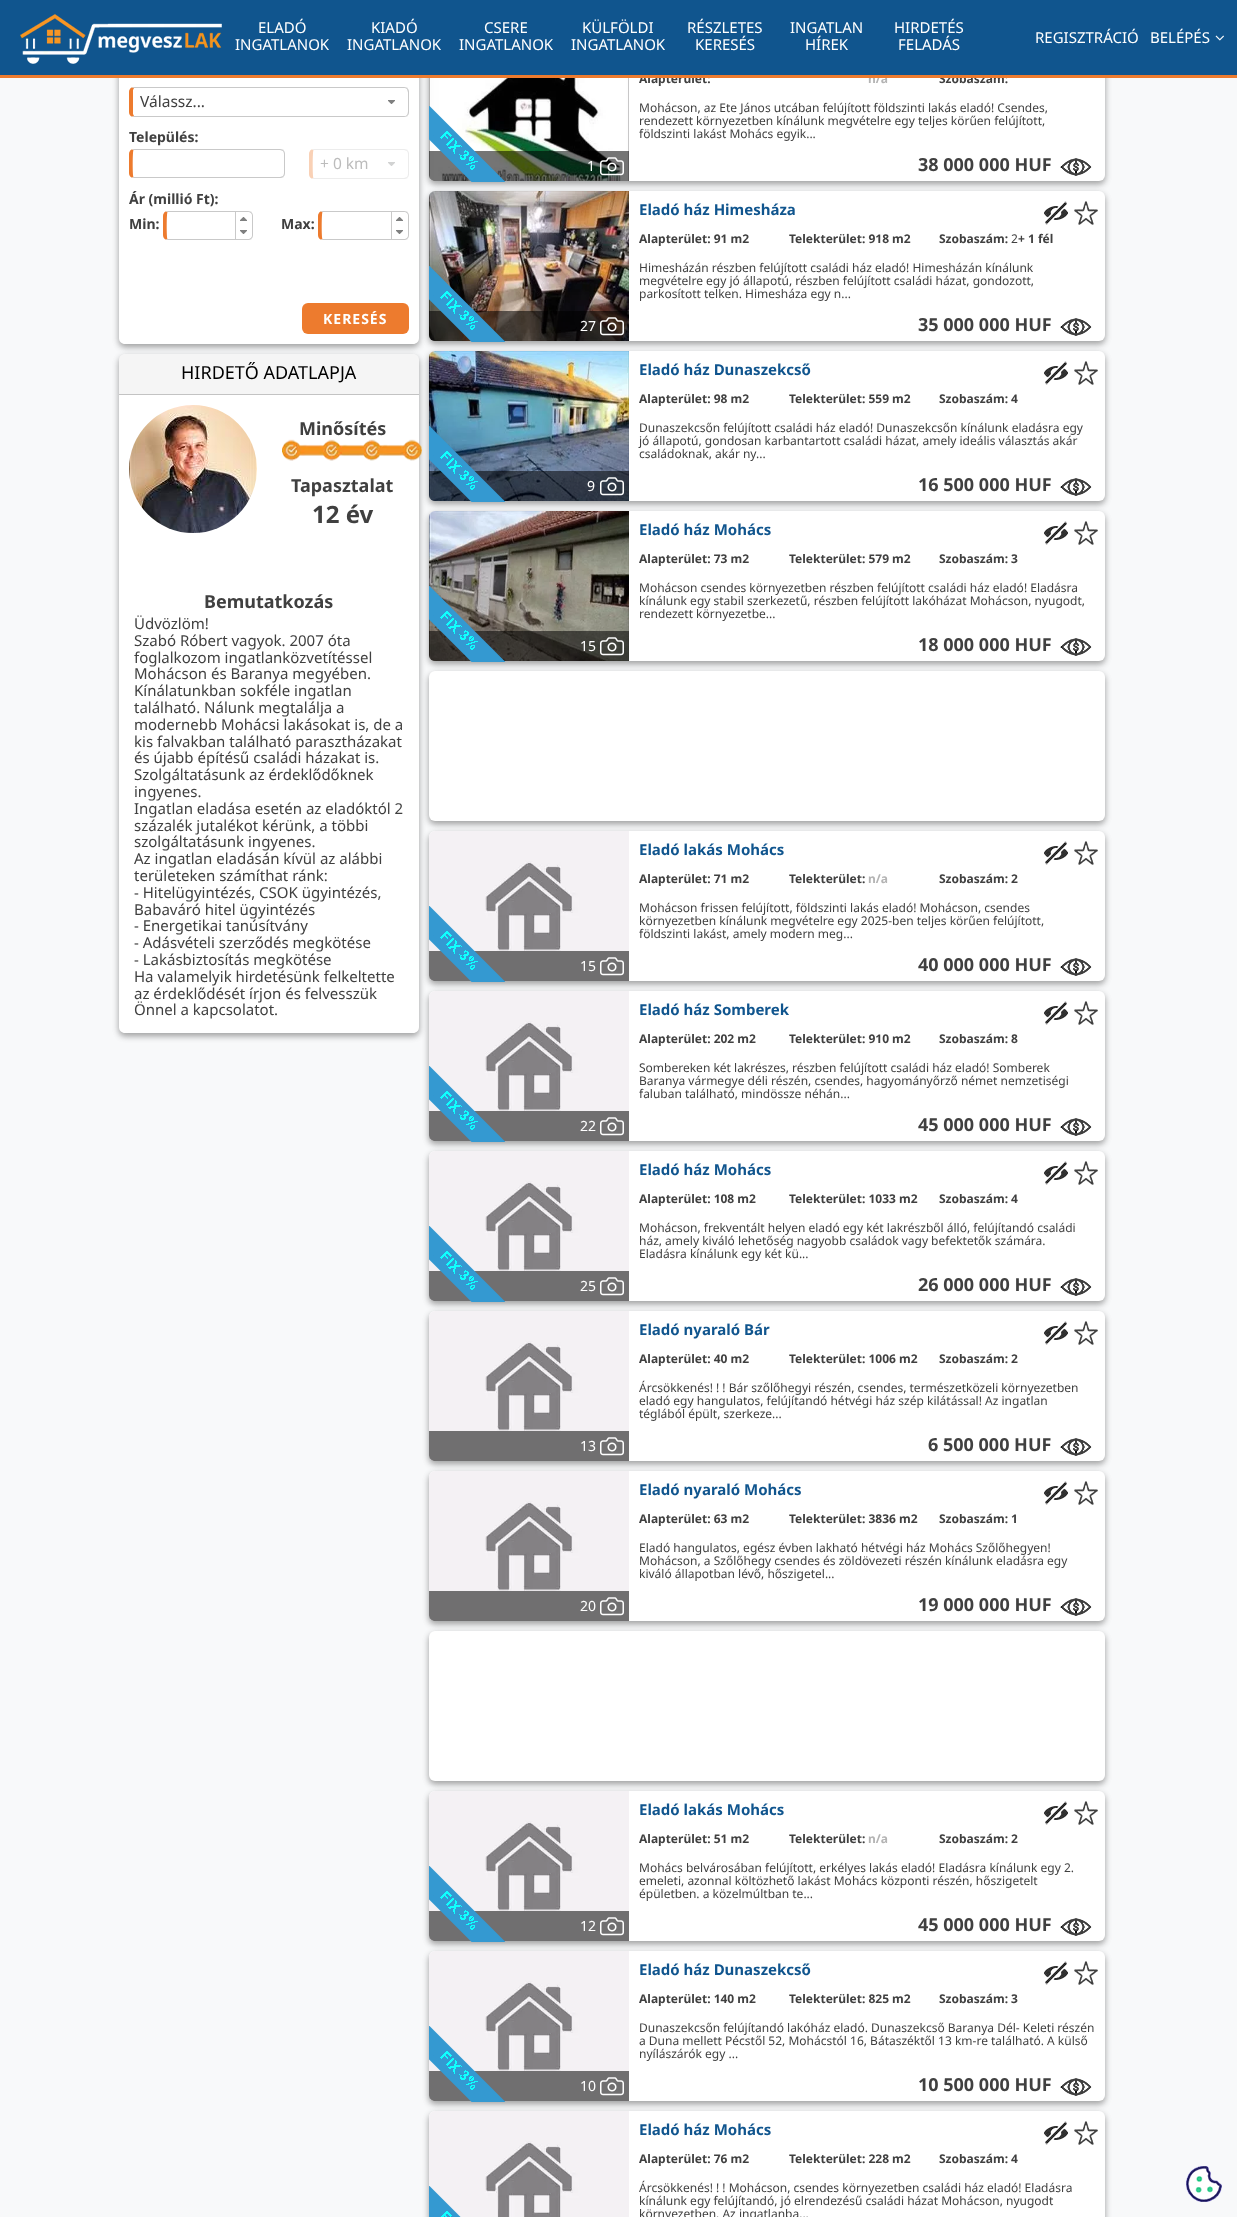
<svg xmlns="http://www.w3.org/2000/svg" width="1237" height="2217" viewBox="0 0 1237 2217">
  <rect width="100%" height="100%" fill="#f8f9fa"/>
  <rect x="119" y="-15" width="300" height="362" rx="6" fill="#0000003b" filter="blur(3px)"/>
  <rect x="119" y="-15" width="300" height="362" rx="6" fill="#00000029" filter="blur(3px)"/>
  <path d="M119-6H419V338C419 341.5 416.5 344 413 344H125C121.5 344 119 341.5 119 338Z" fill="#fff"/>
  <path d="M134 87L131 88H134H405L407 89L408 88C407 88 406 87 404 87Z" fill="#c9c9c9"/>
  <path d="M409 112V92C409 90.5 408.5 89 407.5 88.5L407 89L408 92.5V111C408 112.5 407.5 114 407 115L407.5 115.5C408.5 115 409 113.5 409 112Z" fill="#c9c9c9"/>
  <path d="M134 117H404C406 117 407 116 408 116L407 115C406 116 405 116 404 116H134H131Z" fill="#c9c9c9"/>
  <path d="M129 92V112C129 114 130 115.5 131.5 116.5L134 116L133 114V90L134 88L131.5 87.5C130 88.5 129 90 129 92Z" fill="#ed7b2e"/>
  <image x="388" y="100" width="7" height="4" href="img/3.png"/>
  <path d="M134 149L131 150H134H280L283 151L284 150C283 150 282 149 280 149Z" fill="#c9c9c9"/>
  <path d="M285 173V154C285 152.5 284.5 151 283.5 150.5L283 151C283.5 152 284 153 284 154V173C284 174 283.5 175 283 176L283.5 176.5C284.5 176 285 174.5 285 173Z" fill="#c9c9c9"/>
  <path d="M134 178H281L284 177L283 176L280 177H134H131Z" fill="#c9c9c9"/>
  <path d="M129 154V173C129 175 130 176.5 131.5 177.5L133.5 177C132.5 176 132.5 151 133.5 150L131.5 149.5C130 150.5 129 152 129 154Z" fill="#ed7b2e"/>
  <path d="M314 149L311 150H314H404L407 151L408 150C407 150 406 149 404 149Z" fill="#ececec"/>
  <path d="M409 174V154C409 152.5 408.5 151 407.5 150.5L407 151C407.5 152 408 153 408 154V174C408 175 407.5 176 407 177L407.5 177.5C408.5 177 409 175.5 409 174Z" fill="#ececec"/>
  <path d="M314 179H405L408 178L407 177L404 178H314H311Z" fill="#ececec"/>
  <path d="M309 154V174C309 176 310 177.5 311.5 178.5L313.5 178C312.5 177 312.5 151 313.5 150L311.5 149.5C310 150.5 309 152 309 154Z" fill="#f9d1b6"/>
  <image x="388" y="162" width="7" height="4" href="img/4.png"/>
  <path d="M168 211L165 212H168H248L251 213L252 212C251 212 250 211 248 211Z" fill="#c9c9c9"/>
  <path d="M253 235V216C253 214.5 252.5 213 251.5 212.5L251 213C251.5 214 252 215 252 216V235C252 236 251.5 237 251 238L251.5 238.5C252.5 238 253 236.5 253 235Z" fill="#c9c9c9"/>
  <path d="M168 240H249L252 239L251 238L248 239H168H165Z" fill="#c9c9c9"/>
  <path d="M163 216V235C163 237 164 238.5 165.5 239.5L167.5 239C166.5 238 166.5 213 167.5 212L165.5 211.5C164 212.5 163 214 163 216Z" fill="#ed7b2e"/>
  <path d="M235 212H247C250 212 252 214 252 217V226H235Z" fill="#fff"/>
  <path d="M235 212h1v14H235z" fill="#c9c9c9"/>
  <image x="240" y="217" width="7" height="4" href="img/5.png"/>
  <path d="M235 226H252V234C252 237 250 239 247 239H235Z" fill="#fff"/>
  <path d="M235 226h1v13H235z" fill="#c9c9c9"/>
  <image x="240" y="230" width="7" height="4" href="img/3.png"/>
  <path d="M323 211L320 212H323H404L407 213L408 212C407 212 406 211 404 211Z" fill="#c9c9c9"/>
  <path d="M409 235V216C409 214.5 408.5 213 407.5 212.5L407 213C407.5 214 408 215 408 216V235C408 236 407.5 237 407 238L407.5 238.5C408.5 238 409 236.5 409 235Z" fill="#c9c9c9"/>
  <path d="M323 240H405L408 239L407 238L404 239H323H320Z" fill="#c9c9c9"/>
  <path d="M318 216V235C318 237 319 238.5 320.5 239.5L322.5 239C321.5 238 321.5 213 322.5 212L320.5 211.5C319 212.5 318 214 318 216Z" fill="#ed7b2e"/>
  <path d="M391 212H403C406 212 408 214 408 217V226H391Z" fill="#fff"/>
  <path d="M391 212h1v14H391z" fill="#c9c9c9"/>
  <image x="396" y="217" width="7" height="4" href="img/5.png"/>
  <path d="M391 226H408V234C408 237 406 239 403 239H391Z" fill="#fff"/>
  <path d="M391 226h1v13H391z" fill="#c9c9c9"/>
  <image x="396" y="230" width="7" height="4" href="img/3.png"/>
  <rect x="302" y="303" width="107" height="31" rx="6" fill="#ed7b2e"/>
  <rect x="119" y="357" width="300" height="679" rx="6" fill="#0000003b" filter="blur(3px)"/>
  <rect x="119" y="357" width="300" height="679" rx="6" fill="#00000029" filter="blur(3px)"/>
  <path d="M125 354H413C416.5 354 419 356.5 419 360V395H119V360C119 356.5 121.5 354 125 354Z" fill="#f5f5f5"/>
  <path d="M119 394h300v1H119z" fill="#c3c3c3"/>
  <path d="M119 395H419V1027C419 1030.5 416.5 1033 413 1033H125C121.5 1033 119 1030.5 119 1027Z" fill="#fff"/>
  <image x="129" y="405" width="128" height="128" href="img/6.png"/>
  <image x="282" y="439" width="140" height="22" href="img/7.png"/>
  <rect x="429" y="34" width="676" height="150" rx="6" fill="#0000003b" filter="blur(3px)"/>
  <rect x="429" y="34" width="676" height="150" rx="6" fill="#00000029" filter="blur(3px)"/>
  <rect x="429" y="31" width="676" height="150" rx="6" fill="#fff"/>
  <image x="429" y="78" width="200" height="103" href="img/9.png"/>
  <path d="M429 151H629V181H435C431.5 181 429 178.5 429 175Z" fill="#0000008a"/>
  <image x="429" y="106" width="76" height="76" href="img/8.png"/>
  <image x="600" y="157" width="24" height="19" href="img/10.png"/>
  <image x="1060" y="158" width="32" height="18" href="img/11.png"/>
  <rect x="429" y="194" width="676" height="150" rx="6" fill="#0000003b" filter="blur(3px)"/>
  <rect x="429" y="194" width="676" height="150" rx="6" fill="#00000029" filter="blur(3px)"/>
  <rect x="429" y="191" width="676" height="150" rx="6" fill="#fff"/>
  <image x="429" y="191" width="200" height="150" href="img/13.png"/>
  <path d="M429 311H629V341H435C431.5 341 429 338.5 429 335Z" fill="#0000008a"/>
  <image x="429" y="266" width="76" height="76" href="img/12.png"/>
  <image x="600" y="317" width="24" height="19" href="img/14.png"/>
  <image x="1044" y="201" width="24" height="24" href="img/15.png"/>
  <image x="1074" y="201" width="24" height="24" href="img/16.png"/>
  <image x="1060" y="318" width="32" height="18" href="img/11.png"/>
  <rect x="429" y="354" width="676" height="150" rx="6" fill="#0000003b" filter="blur(3px)"/>
  <rect x="429" y="354" width="676" height="150" rx="6" fill="#00000029" filter="blur(3px)"/>
  <rect x="429" y="351" width="676" height="150" rx="6" fill="#fff"/>
  <image x="429" y="351" width="200" height="150" href="img/18.png"/>
  <path d="M429 471H629V501H435C431.5 501 429 498.5 429 495Z" fill="#0000008a"/>
  <image x="429" y="426" width="76" height="76" href="img/17.png"/>
  <image x="600" y="477" width="24" height="19" href="img/19.png"/>
  <image x="1044" y="361" width="24" height="24" href="img/15.png"/>
  <image x="1074" y="361" width="24" height="24" href="img/16.png"/>
  <image x="1060" y="478" width="32" height="18" href="img/11.png"/>
  <rect x="429" y="514" width="676" height="150" rx="6" fill="#0000003b" filter="blur(3px)"/>
  <rect x="429" y="514" width="676" height="150" rx="6" fill="#00000029" filter="blur(3px)"/>
  <rect x="429" y="511" width="676" height="150" rx="6" fill="#fff"/>
  <image x="429" y="511" width="200" height="150" href="img/21.png"/>
  <path d="M429 631H629V661H435C431.5 661 429 658.5 429 655Z" fill="#0000008a"/>
  <image x="429" y="586" width="76" height="76" href="img/20.png"/>
  <image x="600" y="637" width="24" height="19" href="img/22.png"/>
  <image x="1044" y="521" width="24" height="24" href="img/15.png"/>
  <image x="1074" y="521" width="24" height="24" href="img/16.png"/>
  <image x="1060" y="638" width="32" height="18" href="img/11.png"/>
  <rect x="429" y="674" width="676" height="150" rx="6" fill="#0000003b" filter="blur(3px)"/>
  <rect x="429" y="674" width="676" height="150" rx="6" fill="#00000029" filter="blur(3px)"/>
  <rect x="429" y="671" width="676" height="150" rx="6" fill="#fff"/>
  <rect x="429" y="834" width="676" height="150" rx="6" fill="#0000003b" filter="blur(3px)"/>
  <rect x="429" y="834" width="676" height="150" rx="6" fill="#00000029" filter="blur(3px)"/>
  <rect x="429" y="831" width="676" height="150" rx="6" fill="#fff"/>
  <image x="429" y="831" width="200" height="150" href="img/24.png"/>
  <path d="M429 951H629V981H435C431.5 981 429 978.5 429 975Z" fill="#0000008a"/>
  <image x="429" y="906" width="76" height="76" href="img/23.png"/>
  <image x="600" y="957" width="24" height="19" href="img/25.png"/>
  <image x="1044" y="841" width="24" height="24" href="img/15.png"/>
  <image x="1074" y="841" width="24" height="24" href="img/16.png"/>
  <image x="1060" y="958" width="32" height="18" href="img/11.png"/>
  <rect x="429" y="994" width="676" height="150" rx="6" fill="#0000003b" filter="blur(3px)"/>
  <rect x="429" y="994" width="676" height="150" rx="6" fill="#00000029" filter="blur(3px)"/>
  <rect x="429" y="991" width="676" height="150" rx="6" fill="#fff"/>
  <image x="429" y="991" width="200" height="150" href="img/24.png"/>
  <path d="M429 1111H629V1141H435C431.5 1141 429 1138.5 429 1135Z" fill="#0000008a"/>
  <image x="429" y="1066" width="76" height="76" href="img/23.png"/>
  <image x="600" y="1117" width="24" height="19" href="img/25.png"/>
  <image x="1044" y="1001" width="24" height="24" href="img/15.png"/>
  <image x="1074" y="1001" width="24" height="24" href="img/16.png"/>
  <image x="1060" y="1118" width="32" height="18" href="img/11.png"/>
  <rect x="429" y="1154" width="676" height="150" rx="6" fill="#0000003b" filter="blur(3px)"/>
  <rect x="429" y="1154" width="676" height="150" rx="6" fill="#00000029" filter="blur(3px)"/>
  <rect x="429" y="1151" width="676" height="150" rx="6" fill="#fff"/>
  <image x="429" y="1151" width="200" height="150" href="img/24.png"/>
  <path d="M429 1271H629V1301H435C431.5 1301 429 1298.5 429 1295Z" fill="#0000008a"/>
  <image x="429" y="1226" width="76" height="76" href="img/23.png"/>
  <image x="600" y="1277" width="24" height="19" href="img/25.png"/>
  <image x="1044" y="1161" width="24" height="24" href="img/15.png"/>
  <image x="1074" y="1161" width="24" height="24" href="img/16.png"/>
  <image x="1060" y="1278" width="32" height="18" href="img/11.png"/>
  <rect x="429" y="1314" width="676" height="150" rx="6" fill="#0000003b" filter="blur(3px)"/>
  <rect x="429" y="1314" width="676" height="150" rx="6" fill="#00000029" filter="blur(3px)"/>
  <rect x="429" y="1311" width="676" height="150" rx="6" fill="#fff"/>
  <image x="429" y="1311" width="200" height="150" href="img/24.png"/>
  <path d="M429 1431H629V1461H435C431.5 1461 429 1458.5 429 1455Z" fill="#0000008a"/>
  <image x="600" y="1437" width="24" height="19" href="img/25.png"/>
  <image x="1044" y="1321" width="24" height="24" href="img/15.png"/>
  <image x="1074" y="1321" width="24" height="24" href="img/16.png"/>
  <image x="1060" y="1438" width="32" height="18" href="img/11.png"/>
  <rect x="429" y="1474" width="676" height="150" rx="6" fill="#0000003b" filter="blur(3px)"/>
  <rect x="429" y="1474" width="676" height="150" rx="6" fill="#00000029" filter="blur(3px)"/>
  <rect x="429" y="1471" width="676" height="150" rx="6" fill="#fff"/>
  <image x="429" y="1471" width="200" height="150" href="img/24.png"/>
  <path d="M429 1591H629V1621H435C431.5 1621 429 1618.5 429 1615Z" fill="#0000008a"/>
  <image x="600" y="1597" width="24" height="19" href="img/25.png"/>
  <image x="1044" y="1481" width="24" height="24" href="img/15.png"/>
  <image x="1074" y="1481" width="24" height="24" href="img/16.png"/>
  <image x="1060" y="1598" width="32" height="18" href="img/11.png"/>
  <rect x="429" y="1634" width="676" height="150" rx="6" fill="#0000003b" filter="blur(3px)"/>
  <rect x="429" y="1634" width="676" height="150" rx="6" fill="#00000029" filter="blur(3px)"/>
  <rect x="429" y="1631" width="676" height="150" rx="6" fill="#fff"/>
  <rect x="429" y="1794" width="676" height="150" rx="6" fill="#0000003b" filter="blur(3px)"/>
  <rect x="429" y="1794" width="676" height="150" rx="6" fill="#00000029" filter="blur(3px)"/>
  <rect x="429" y="1791" width="676" height="150" rx="6" fill="#fff"/>
  <image x="429" y="1791" width="200" height="150" href="img/24.png"/>
  <path d="M429 1911H629V1941H435C431.5 1941 429 1938.5 429 1935Z" fill="#0000008a"/>
  <image x="429" y="1866" width="76" height="76" href="img/23.png"/>
  <image x="600" y="1917" width="24" height="19" href="img/25.png"/>
  <image x="1044" y="1801" width="24" height="24" href="img/15.png"/>
  <image x="1074" y="1801" width="24" height="24" href="img/16.png"/>
  <image x="1060" y="1918" width="32" height="18" href="img/11.png"/>
  <rect x="429" y="1954" width="676" height="150" rx="6" fill="#0000003b" filter="blur(3px)"/>
  <rect x="429" y="1954" width="676" height="150" rx="6" fill="#00000029" filter="blur(3px)"/>
  <rect x="429" y="1951" width="676" height="150" rx="6" fill="#fff"/>
  <image x="429" y="1951" width="200" height="150" href="img/26.png"/>
  <path d="M429 2071H629V2101H435C431.5 2101 429 2098.5 429 2095Z" fill="#0000008a"/>
  <image x="429" y="2026" width="76" height="76" href="img/23.png"/>
  <image x="600" y="2077" width="24" height="19" href="img/25.png"/>
  <image x="1044" y="1961" width="24" height="24" href="img/15.png"/>
  <image x="1074" y="1961" width="24" height="24" href="img/16.png"/>
  <image x="1060" y="2078" width="32" height="18" href="img/11.png"/>
  <rect x="429" y="2114" width="676" height="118" rx="6" fill="#0000003b" filter="blur(3px)"/>
  <rect x="429" y="2114" width="676" height="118" rx="6" fill="#00000029" filter="blur(3px)"/>
  <rect x="429" y="2111" width="676" height="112" rx="6" fill="#fff"/>
  <image x="429" y="2111" width="200" height="106" href="img/27.png"/>
  <image x="1044" y="2121" width="24" height="24" href="img/15.png"/>
  <image x="1074" y="2121" width="24" height="24" href="img/16.png"/>
  <image x="429" y="2186" width="32" height="31" href="img/28.png"/>
  <image x="1186" y="2166" width="36" height="36" href="img/29.png"/>
  <text x="140" y="107" font-family="Noto Sans" font-size="15.5" fill="#404040">Válassz...</text>
  <text x="129" y="142" font-family="Noto Sans" font-size="14" font-weight="bold" fill="#404040">Település:</text>
  <text x="320" y="169" font-family="Noto Sans" font-size="15.5" fill="#bcbcbc">+ 0 km</text>
  <g font-family="Noto Sans" font-size="14" font-weight="bold" fill="#404040">
    <text x="129" y="204">Ár (millió Ft):</text>
    <text x="129" y="229">Min:</text>
    <text x="281" y="229">Max:</text>
  </g>
  <text x="323" y="324" font-family="Noto Sans" font-size="14" font-weight="bold" letter-spacing="1" fill="#fff">KERESÉS</text>
  <text x="181" y="379" font-family="Noto Sans" font-size="18" fill="#000">HIRDETŐ ADATLAPJA</text>
  <g font-family="Noto Sans" font-size="18" font-weight="bold" fill="#404040">
    <text x="299" y="435">Minősítés</text>
    <text x="291" y="492">Tapasztalat</text>
  </g>
  <text x="312" y="523" font-family="Noto Sans" font-size="24" font-weight="bold" fill="#404040">12 év</text>
  <text x="204" y="608" font-family="Noto Sans" font-size="18" font-weight="bold" fill="#404040">Bemutatkozás</text>
  <g font-family="Noto Sans" font-size="15" fill="#404040">
    <text x="134" y="629">Üdvözlöm!</text>
    <text x="134" y="646">Szabó Róbert vagyok. 2007 óta</text>
    <text x="134" y="663">foglalkozom ingatlanközvetítéssel</text>
    <text x="134" y="679">Mohácson és Baranya megyében.</text>
    <text x="134" y="696">Kínálatunkban sokféle ingatlan</text>
    <text x="134" y="713">található. Nálunk megtalálja a</text>
    <text x="134" y="730">modernebb Mohácsi lakásokat is, de a</text>
    <text x="134" y="747">kis falvakban található parasztházakat</text>
    <text x="134" y="763">és újabb építésű családi házakat is.</text>
    <text x="134" y="780">Szolgáltatásunk az érdeklődőknek</text>
    <text x="134" y="797">ingyenes.</text>
    <text x="134" y="814">Ingatlan eladása esetén az eladóktól 2</text>
    <text x="134" y="831">százalék jutalékot kérünk, a többi</text>
    <text x="134" y="847">szolgáltatásunk ingyenes.</text>
    <text x="134" y="864">Az ingatlan eladásán kívül az alábbi</text>
    <text x="134" y="881">területeken számíthat ránk:</text>
    <text x="134" y="898">- Hitelügyintézés, CSOK ügyintézés,</text>
    <text x="134" y="915">Babaváró hitel ügyintézés</text>
    <text x="134" y="931">- Energetikai tanúsítvány</text>
    <text x="134" y="948">- Adásvételi szerződés megkötése</text>
    <text x="134" y="965">- Lakásbiztosítás megkötése</text>
    <text x="134" y="982">Ha valamelyik hirdetésünk felkeltette</text>
    <text x="134" y="999">az érdeklődését írjon és felvesszük</text>
    <text x="134" y="1015">Önnel a kapcsolatot.</text>
  </g>
  <text x="587" y="171" font-family="Noto Sans" font-size="14" fill="#fff">1</text>
  <text x="639" y="83" font-family="Noto Sans" font-size="12" font-weight="bold" fill="#404040">Alapterület:</text>
  <text x="868" y="83" font-family="Noto Sans" font-size="12" font-weight="bold" fill="#b4b4b4">n/a</text>
  <text x="939" y="83" font-family="Noto Sans" font-size="12" font-weight="bold" fill="#404040">Szobaszám:</text>
  <path d="M0 0h1237v75H0z" fill="#10558e"/>
  <image x="20" y="14" width="202" height="50" href="img/1.png"/>
  <text x="1035" y="43" font-family="Noto Sans" font-size="15" fill="#fff">REGISZTRÁCIÓ</text>
  <image x="1215" y="35" width="9" height="6" href="img/2.png"/>
  <g font-family="Noto Sans" font-size="15" fill="#fff">
    <text x="1150" y="43">BELÉPÉS</text>
    <text x="898" y="50">FELADÁS</text>
    <text x="894" y="33">HIRDETÉS</text>
    <text x="805" y="50">HÍREK</text>
    <text x="790" y="33">INGATLAN</text>
    <text x="695" y="50">KERESÉS</text>
    <text x="687" y="33">RÉSZLETES</text>
    <text x="571" y="50">INGATLANOK</text>
    <text x="582" y="33">KÜLFÖLDI</text>
    <text x="459" y="50">INGATLANOK</text>
    <text x="484" y="33">CSERE</text>
    <text x="347" y="50">INGATLANOK</text>
    <text x="371" y="33">KIADÓ</text>
    <text x="235" y="50">INGATLANOK</text>
    <text x="258" y="33">ELADÓ</text>
  </g>
  <path d="M0 75h1237v3H0z" fill="#ed7b2e"/>
  <g font-family="Noto Sans" font-size="12" fill="#404040">
    <text x="639" y="112">Mohácson, az Ete János utcában felújított földszinti lakás eladó! Csendes,</text>
    <text x="639" y="125">rendezett környezetben kínálunk megvételre egy teljes körűen felújított,</text>
    <text x="639" y="138">földszinti lakást Mohács egyik...</text>
  </g>
  <text x="918" y="171" font-family="Noto Sans" font-size="18" font-weight="bold" fill="#404040">38 000 000 HUF</text>
  <text x="580" y="331" font-family="Noto Sans" font-size="14" fill="#fff">27</text>
  <text x="639" y="215" font-family="Noto Sans" font-size="15" font-weight="bold" fill="#10558e">Eladó ház Himesháza</text>
  <g font-family="Noto Sans" font-size="12" font-weight="bold" fill="#404040">
    <text x="639" y="243">Alapterület: 91 m2</text>
    <text x="789" y="243">Telekterület: 918 m2</text>
    <text x="939" y="243">Szobaszám:</text>
  </g>
  <text x="1011" y="243" font-family="Noto Sans" font-size="12" fill="#404040">2</text>
  <text x="1018" y="243" font-family="Noto Sans" font-size="12" font-weight="bold" fill="#404040">+ 1 fél</text>
  <g font-family="Noto Sans" font-size="12" fill="#404040">
    <text x="639" y="272">Himesházán részben felújított családi ház eladó! Himesházán kínálunk</text>
    <text x="639" y="285">megvételre egy jó állapotú, részben felújított családi házat, gondozott,</text>
    <text x="639" y="298">parkosított telken. Himesháza egy n...</text>
  </g>
  <text x="918" y="331" font-family="Noto Sans" font-size="18" font-weight="bold" fill="#404040">35 000 000 HUF</text>
  <text x="587" y="491" font-family="Noto Sans" font-size="14" fill="#fff">9</text>
  <text x="639" y="375" font-family="Noto Sans" font-size="15" font-weight="bold" fill="#10558e">Eladó ház Dunaszekcső</text>
  <g font-family="Noto Sans" font-size="12" font-weight="bold" fill="#404040">
    <text x="639" y="403">Alapterület: 98 m2</text>
    <text x="789" y="403">Telekterület: 559 m2</text>
    <text x="939" y="403">Szobaszám: 4</text>
  </g>
  <g font-family="Noto Sans" font-size="12" fill="#404040">
    <text x="639" y="432">Dunaszekcsőn felújított családi ház eladó! Dunaszekcsőn kínálunk eladásra egy</text>
    <text x="639" y="445">jó állapotú, gondosan karbantartott családi házat, amely ideális választás akár</text>
    <text x="639" y="458">családoknak, akár ny...</text>
  </g>
  <text x="918" y="491" font-family="Noto Sans" font-size="18" font-weight="bold" fill="#404040">16 500 000 HUF</text>
  <text x="580" y="651" font-family="Noto Sans" font-size="14" fill="#fff">15</text>
  <text x="639" y="535" font-family="Noto Sans" font-size="15" font-weight="bold" fill="#10558e">Eladó ház Mohács</text>
  <g font-family="Noto Sans" font-size="12" font-weight="bold" fill="#404040">
    <text x="639" y="563">Alapterület: 73 m2</text>
    <text x="789" y="563">Telekterület: 579 m2</text>
    <text x="939" y="563">Szobaszám: 3</text>
  </g>
  <g font-family="Noto Sans" font-size="12" fill="#404040">
    <text x="639" y="592">Mohácson csendes környezetben részben felújított családi ház eladó! Eladásra</text>
    <text x="639" y="605">kínálunk egy stabil szerkezetű, részben felújított lakóházat Mohácson, nyugodt,</text>
    <text x="639" y="618">rendezett környezetbe...</text>
  </g>
  <text x="918" y="651" font-family="Noto Sans" font-size="18" font-weight="bold" fill="#404040">18 000 000 HUF</text>
  <text x="580" y="971" font-family="Noto Sans" font-size="14" fill="#fff">15</text>
  <text x="639" y="855" font-family="Noto Sans" font-size="15" font-weight="bold" fill="#10558e">Eladó lakás Mohács</text>
  <g font-family="Noto Sans" font-size="12" font-weight="bold" fill="#404040">
    <text x="639" y="883">Alapterület: 71 m2</text>
    <text x="789" y="883">Telekterület:</text>
  </g>
  <text x="868" y="883" font-family="Noto Sans" font-size="12" font-weight="bold" fill="#b4b4b4">n/a</text>
  <text x="939" y="883" font-family="Noto Sans" font-size="12" font-weight="bold" fill="#404040">Szobaszám: 2</text>
  <g font-family="Noto Sans" font-size="12" fill="#404040">
    <text x="639" y="912">Mohácson frissen felújított, földszinti lakás eladó! Mohácson, csendes</text>
    <text x="639" y="925">környezetben kínálunk megvételre egy 2025-ben teljes körűen felújított,</text>
    <text x="639" y="938">földszinti lakást, amely modern meg...</text>
  </g>
  <text x="918" y="971" font-family="Noto Sans" font-size="18" font-weight="bold" fill="#404040">40 000 000 HUF</text>
  <text x="580" y="1131" font-family="Noto Sans" font-size="14" fill="#fff">22</text>
  <text x="639" y="1015" font-family="Noto Sans" font-size="15" font-weight="bold" fill="#10558e">Eladó ház Somberek</text>
  <g font-family="Noto Sans" font-size="12" font-weight="bold" fill="#404040">
    <text x="639" y="1043">Alapterület: 202 m2</text>
    <text x="789" y="1043">Telekterület: 910 m2</text>
    <text x="939" y="1043">Szobaszám: 8</text>
  </g>
  <g font-family="Noto Sans" font-size="12" fill="#404040">
    <text x="639" y="1072">Sombereken két lakrészes, részben felújított családi ház eladó! Somberek</text>
    <text x="639" y="1085">Baranya vármegye déli részén, csendes, hagyományőrző német nemzetiségi</text>
    <text x="639" y="1098">faluban található, mindössze néhán...</text>
  </g>
  <text x="918" y="1131" font-family="Noto Sans" font-size="18" font-weight="bold" fill="#404040">45 000 000 HUF</text>
  <text x="580" y="1291" font-family="Noto Sans" font-size="14" fill="#fff">25</text>
  <text x="639" y="1175" font-family="Noto Sans" font-size="15" font-weight="bold" fill="#10558e">Eladó ház Mohács</text>
  <g font-family="Noto Sans" font-size="12" font-weight="bold" fill="#404040">
    <text x="639" y="1203">Alapterület: 108 m2</text>
    <text x="789" y="1203">Telekterület: 1033 m2</text>
    <text x="939" y="1203">Szobaszám: 4</text>
  </g>
  <g font-family="Noto Sans" font-size="12" fill="#404040">
    <text x="639" y="1232">Mohácson, frekventált helyen eladó egy két lakrészből álló, felújítandó családi</text>
    <text x="639" y="1245">ház, amely kiváló lehetőség nagyobb családok vagy befektetők számára.</text>
    <text x="639" y="1258">Eladásra kínálunk egy két kü...</text>
  </g>
  <text x="918" y="1291" font-family="Noto Sans" font-size="18" font-weight="bold" fill="#404040">26 000 000 HUF</text>
  <text x="580" y="1451" font-family="Noto Sans" font-size="14" fill="#fff">13</text>
  <text x="639" y="1335" font-family="Noto Sans" font-size="15" font-weight="bold" fill="#10558e">Eladó nyaraló Bár</text>
  <g font-family="Noto Sans" font-size="12" font-weight="bold" fill="#404040">
    <text x="639" y="1363">Alapterület: 40 m2</text>
    <text x="789" y="1363">Telekterület: 1006 m2</text>
    <text x="939" y="1363">Szobaszám: 2</text>
  </g>
  <g font-family="Noto Sans" font-size="12" fill="#404040">
    <text x="639" y="1392">Árcsökkenés! ! ! Bár szőlőhegyi részén, csendes, természetközeli környezetben</text>
    <text x="639" y="1405">eladó egy hangulatos, felújítandó hétvégi ház szép kilátással! Az ingatlan</text>
    <text x="639" y="1418">téglából épült, szerkeze...</text>
  </g>
  <text x="928" y="1451" font-family="Noto Sans" font-size="18" font-weight="bold" fill="#404040">6 500 000 HUF</text>
  <text x="580" y="1611" font-family="Noto Sans" font-size="14" fill="#fff">20</text>
  <text x="639" y="1495" font-family="Noto Sans" font-size="15" font-weight="bold" fill="#10558e">Eladó nyaraló Mohács</text>
  <g font-family="Noto Sans" font-size="12" font-weight="bold" fill="#404040">
    <text x="639" y="1523">Alapterület: 63 m2</text>
    <text x="789" y="1523">Telekterület: 3836 m2</text>
    <text x="939" y="1523">Szobaszám: 1</text>
  </g>
  <g font-family="Noto Sans" font-size="12" fill="#404040">
    <text x="639" y="1552">Eladó hangulatos, egész évben lakható hétvégi ház Mohács Szőlőhegyen!</text>
    <text x="639" y="1565">Mohácson, a Szőlőhegy csendes és zöldövezeti részén kínálunk eladásra egy</text>
    <text x="639" y="1578">kiváló állapotban lévő, hőszigetel...</text>
  </g>
  <text x="918" y="1611" font-family="Noto Sans" font-size="18" font-weight="bold" fill="#404040">19 000 000 HUF</text>
  <text x="580" y="1931" font-family="Noto Sans" font-size="14" fill="#fff">12</text>
  <text x="639" y="1815" font-family="Noto Sans" font-size="15" font-weight="bold" fill="#10558e">Eladó lakás Mohács</text>
  <g font-family="Noto Sans" font-size="12" font-weight="bold" fill="#404040">
    <text x="639" y="1843">Alapterület: 51 m2</text>
    <text x="789" y="1843">Telekterület:</text>
  </g>
  <text x="868" y="1843" font-family="Noto Sans" font-size="12" font-weight="bold" fill="#b4b4b4">n/a</text>
  <text x="939" y="1843" font-family="Noto Sans" font-size="12" font-weight="bold" fill="#404040">Szobaszám: 2</text>
  <g font-family="Noto Sans" font-size="12" fill="#404040">
    <text x="639" y="1872">Mohács belvárosában felújított, erkélyes lakás eladó! Eladásra kínálunk egy 2.</text>
    <text x="639" y="1885">emeleti, azonnal költözhető lakást Mohács központi részén, hőszigetelt</text>
    <text x="639" y="1898">épületben. a közelmúltban te...</text>
  </g>
  <text x="918" y="1931" font-family="Noto Sans" font-size="18" font-weight="bold" fill="#404040">45 000 000 HUF</text>
  <text x="580" y="2091" font-family="Noto Sans" font-size="14" fill="#fff">10</text>
  <text x="639" y="1975" font-family="Noto Sans" font-size="15" font-weight="bold" fill="#10558e">Eladó ház Dunaszekcső</text>
  <g font-family="Noto Sans" font-size="12" font-weight="bold" fill="#404040">
    <text x="639" y="2003">Alapterület: 140 m2</text>
    <text x="789" y="2003">Telekterület: 825 m2</text>
    <text x="939" y="2003">Szobaszám: 3</text>
  </g>
  <g font-family="Noto Sans" font-size="12" fill="#404040">
    <text x="639" y="2032">Dunaszekcsőn felújítandó lakóház eladó. Dunaszekcső Baranya Dél- Keleti részén</text>
    <text x="639" y="2045">a Duna mellett Pécstől 52, Mohácstól 16, Bátaszéktől 13 km-re található. A külső</text>
    <text x="639" y="2058">nyílászárók egy ...</text>
  </g>
  <text x="918" y="2091" font-family="Noto Sans" font-size="18" font-weight="bold" fill="#404040">10 500 000 HUF</text>
  <text x="639" y="2135" font-family="Noto Sans" font-size="15" font-weight="bold" fill="#10558e">Eladó ház Mohács</text>
  <g font-family="Noto Sans" font-size="12" font-weight="bold" fill="#404040">
    <text x="639" y="2163">Alapterület: 76 m2</text>
    <text x="789" y="2163">Telekterület: 228 m2</text>
    <text x="939" y="2163">Szobaszám: 4</text>
  </g>
  <g font-family="Noto Sans" font-size="12" fill="#404040">
    <text x="639" y="2192">Árcsökkenés! ! ! Mohácson, csendes környezetben családi ház eladó! Eladásra</text>
    <text x="639" y="2205">kínálunk egy felújítandó, jó elrendezésű családi házat Mohácson, nyugodt</text>
    <text x="639" y="2218">környezetben. Az ingatlanba...</text>
  </g>
</svg>
